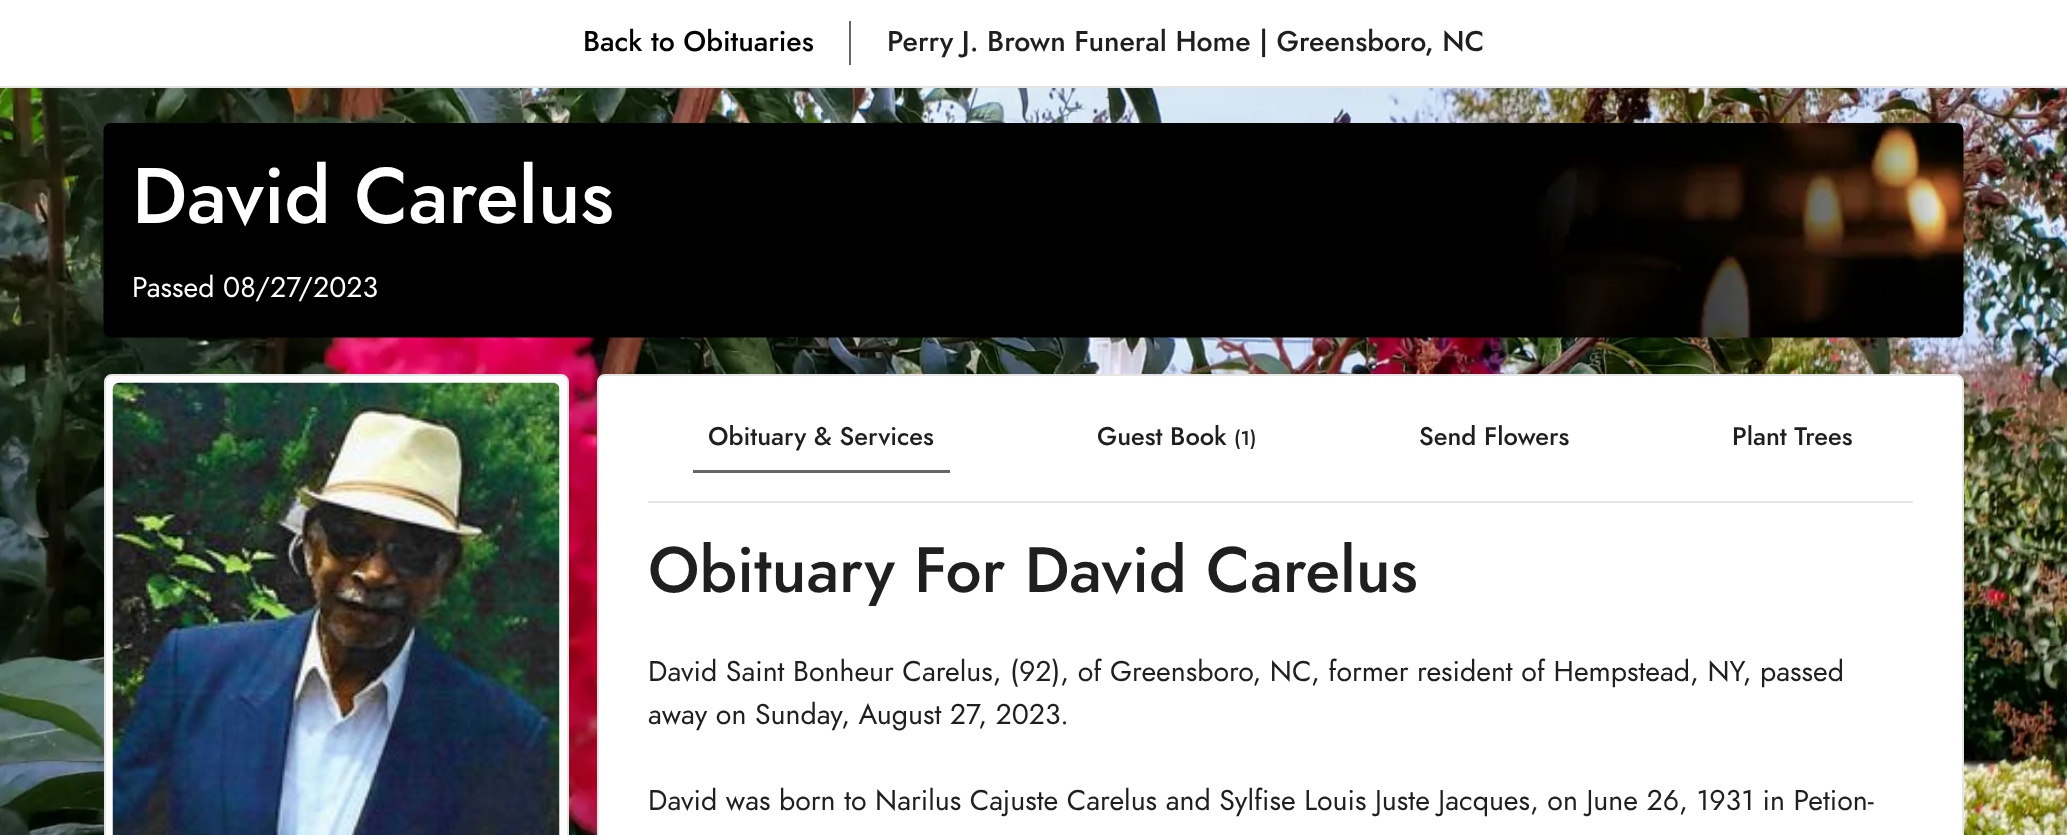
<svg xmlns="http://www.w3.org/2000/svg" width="2067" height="835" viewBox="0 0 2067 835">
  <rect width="100%" height="100%" fill="#fff"/>
  <image x="0" y="88" width="2067" height="747" href="img/1.png"/>
  <path d="M0 86h2067v2H0z" fill="#e5e5e5"/>
  <path d="M849 21h2v44H849z" fill="#666"/>
  <image x="103" y="123" width="1861" height="215" href="img/2.png"/>
  <rect x="105" y="375" width="463" height="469" rx="7" fill="#fff" stroke="#e5e5e5" stroke-width="2"/>
  <image x="112" y="382" width="448" height="453" href="img/3.png"/>
  <rect x="598" y="375" width="1365" height="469" rx="7" fill="#fff" stroke="#e5e5e5" stroke-width="2"/>
  <path d="M693 470h257v3H693z" fill="#666"/>
  <path d="M648 501h1265v2H648z" fill="#e5e5e5"/>
  <text x="583" y="51" font-family="Jost" font-size="28.5" font-weight="500" fill="#000">Back to Obituaries</text>
  <text x="887" y="51" font-family="Jost" font-size="28.5" font-weight="500" fill="#1f1f1f">Perry J. Brown Funeral Home | Greensboro, NC</text>
  <text x="132" y="223" font-family="Jost" font-size="78.5" font-weight="500" fill="#fff">David Carelus</text>
  <text x="132" y="297" font-family="Jost" font-size="28.5" fill="#fff">Passed 08/27/2023</text>
  <g font-family="Jost" font-size="25.5" font-weight="500" fill="#1f1f1f">
    <text x="708" y="445">Obituary &amp; Services</text>
    <text x="1097" y="445">Guest Book</text>
  </g>
  <text x="1234" y="445" font-family="Jost" font-size="20" font-weight="500" fill="#1f1f1f">(1)</text>
  <g font-family="Jost" font-size="25.5" font-weight="500" fill="#1f1f1f">
    <text x="1419" y="445">Send Flowers</text>
    <text x="1732" y="445">Plant Trees</text>
  </g>
  <text x="648" y="592" font-family="Jost" font-size="64.1" font-weight="500" fill="#1f1f1f">Obituary For David Carelus</text>
  <g font-family="Jost" font-size="28.5" fill="#1f1f1f">
    <text x="648" y="681">David Saint Bonheur Carelus, (92), of Greensboro, NC, former resident of Hempstead, NY, passed</text>
    <text x="648" y="724">away on Sunday, August 27, 2023.</text>
    <text x="648" y="810">David was born to Narilus Cajuste Carelus and Sylfise Louis Juste Jacques, on June 26, 1931 in Petion-</text>
  </g>
</svg>
